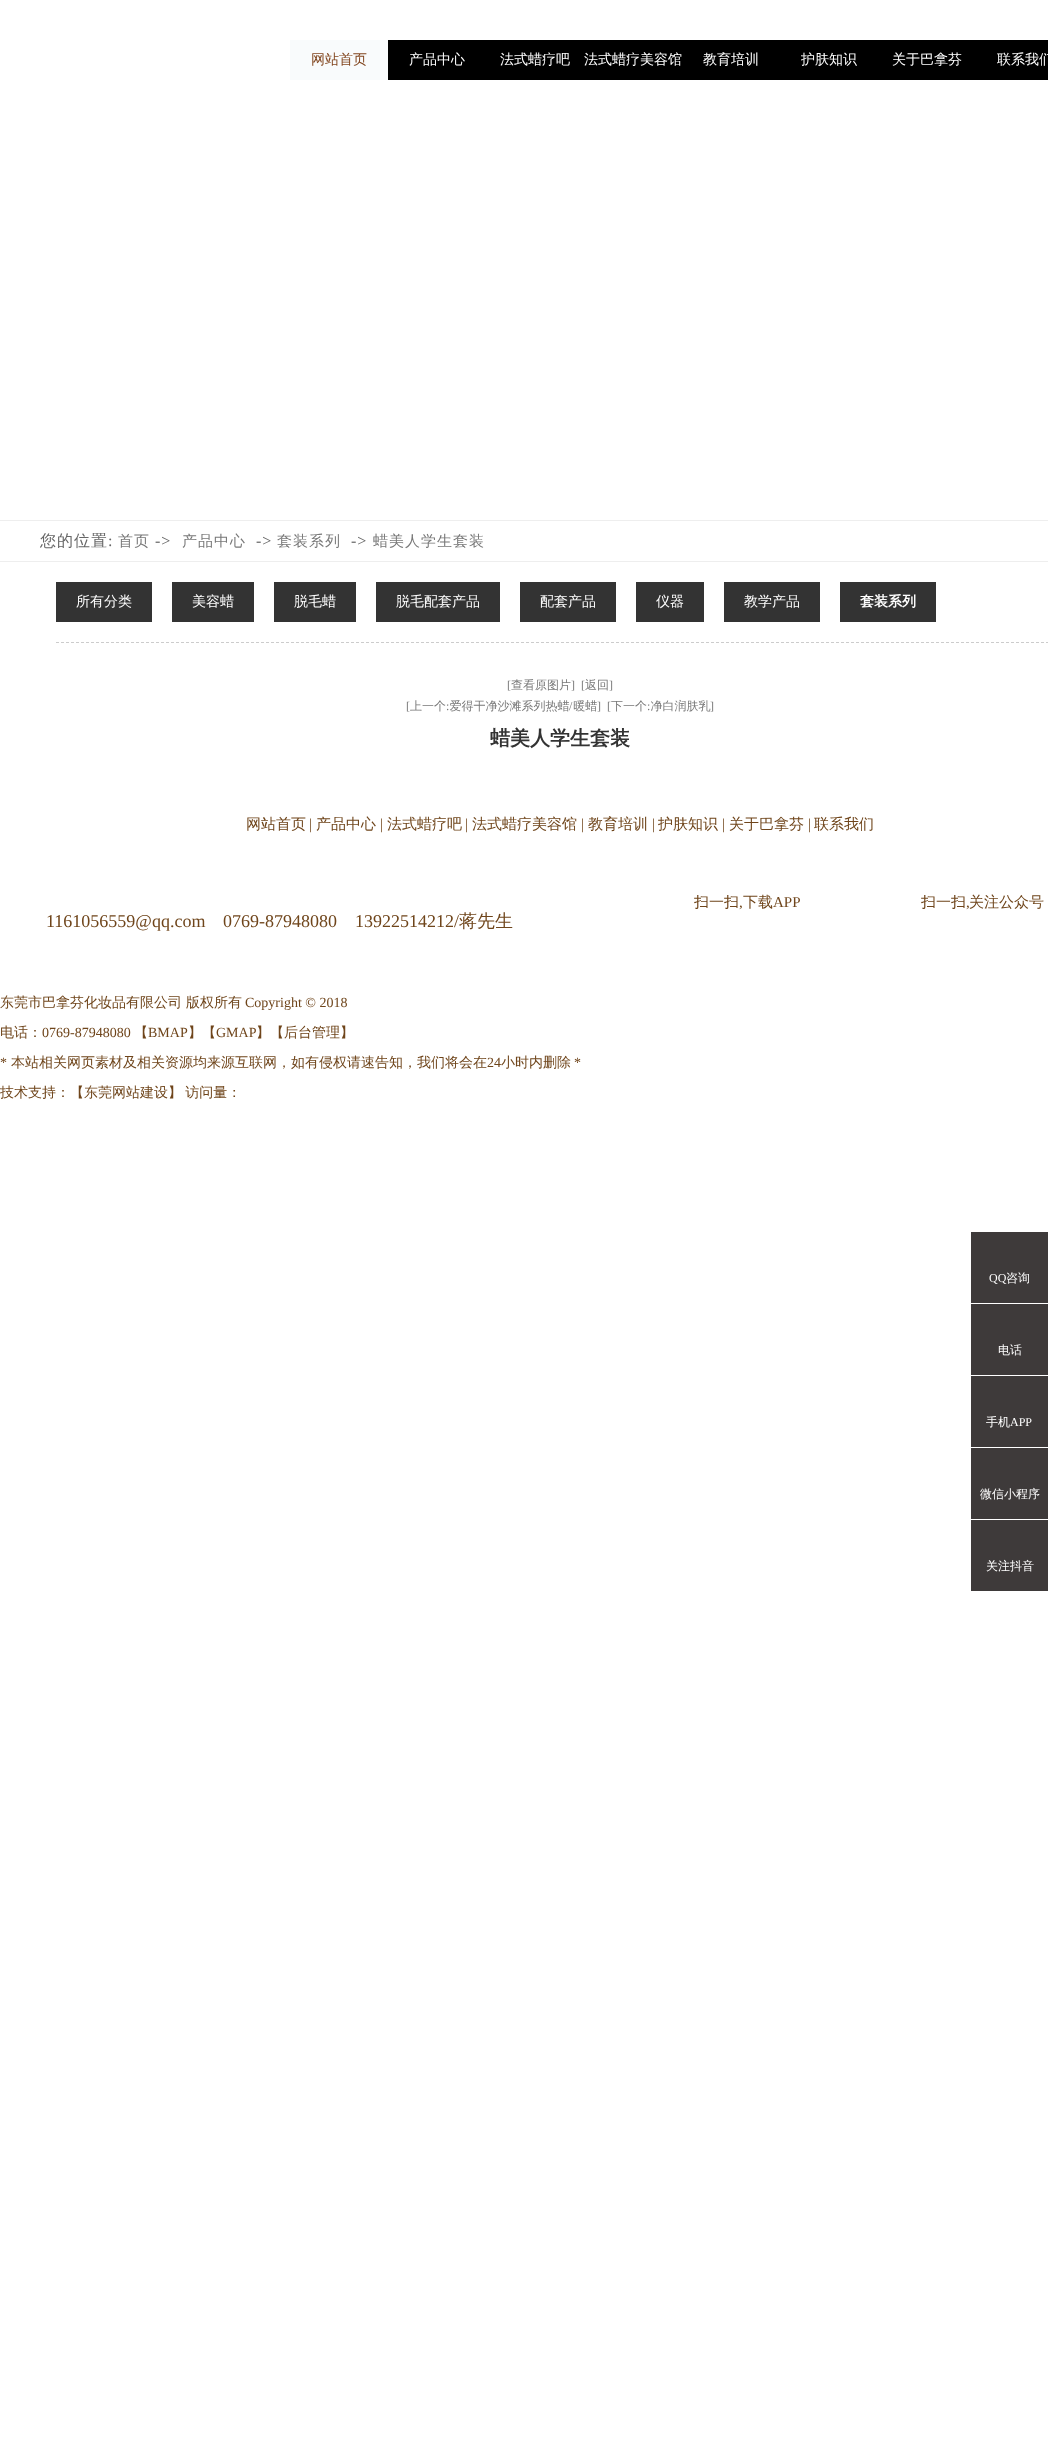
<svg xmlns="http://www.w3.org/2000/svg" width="1048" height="2461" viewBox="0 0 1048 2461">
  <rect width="100%" height="100%" fill="#fff"/>
  <path d="M388 40h660v40H388z" fill="#000"/>
  <path d="M290 40h98v40H290z" fill="#f9fbfc"/>
  <path d="M0 520h1048v1H0z" fill="#eee"/>
  <path d="M0 561h1048v1H0z" fill="#eee"/>
  <path d="M56 642.5H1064" fill="none" stroke="#ccc" stroke-dasharray="3 2"/>
  <path d="M56 582h96v40H56z" fill="#333"/>
  <path d="M172 582h82v40H172z" fill="#333"/>
  <path d="M274 582h82v40H274z" fill="#333"/>
  <path d="M376 582h124v40H376z" fill="#333"/>
  <path d="M520 582h96v40H520z" fill="#333"/>
  <path d="M636 582h68v40H636z" fill="#333"/>
  <path d="M724 582h96v40H724z" fill="#333"/>
  <path d="M840 582h96v40H840z" fill="#333"/>
  <path d="M971 1232h77v71H971z" fill="#3e3a3a"/>
  <path d="M971 1304h77v71H971z" fill="#3e3a3a"/>
  <path d="M971 1376h77v71H971z" fill="#3e3a3a"/>
  <path d="M971 1448h77v71H971z" fill="#3e3a3a"/>
  <path d="M971 1520h77v71H971z" fill="#3e3a3a"/>
  <text x="311" y="64" font-family="WenQuanYi Zen Hei" font-size="14" font-weight="500" fill="#82461f">网站首页</text>
  <g font-family="WenQuanYi Zen Hei" font-size="14" font-weight="500" fill="#fff">
    <text x="409" y="64">产品中心</text>
    <text x="500" y="64">法式蜡疗吧</text>
    <text x="584" y="64">法式蜡疗美容馆</text>
    <text x="703" y="64">教育培训</text>
    <text x="801" y="64">护肤知识</text>
    <text x="892" y="64">关于巴拿芬</text>
    <text x="997" y="64">联系我们</text>
  </g>
  <text x="40" y="546" font-family="WenQuanYi Zen Hei" font-size="16" font-weight="500" letter-spacing="1" fill="#666">您的位置</text>
  <text x="108" y="546" font-family="Liberation Serif" font-size="16" letter-spacing="1" fill="#666">:</text>
  <text x="118" y="546" font-family="WenQuanYi Zen Hei" font-size="15" font-weight="500" letter-spacing="1" fill="#787878">首页</text>
  <text x="155" y="546" font-family="Liberation Serif" font-size="16" letter-spacing="1" fill="#666">-&gt;</text>
  <text x="182" y="546" font-family="WenQuanYi Zen Hei" font-size="15" font-weight="500" letter-spacing="1" fill="#787878">产品中心</text>
  <text x="256" y="546" font-family="Liberation Serif" font-size="16" letter-spacing="1" fill="#666">-&gt;</text>
  <text x="277" y="546" font-family="WenQuanYi Zen Hei" font-size="15" font-weight="500" letter-spacing="1" fill="#787878">套装系列</text>
  <text x="351" y="546" font-family="Liberation Serif" font-size="16" letter-spacing="1" fill="#666">-&gt;</text>
  <text x="373" y="546" font-family="WenQuanYi Zen Hei" font-size="15" font-weight="500" letter-spacing="1" fill="#787878">蜡美人学生套装</text>
  <g font-family="WenQuanYi Zen Hei" font-size="14" font-weight="500" fill="#fff">
    <text x="76" y="606">所有分类</text>
    <text x="192" y="606">美容蜡</text>
    <text x="294" y="606">脱毛蜡</text>
    <text x="396" y="606">脱毛配套产品</text>
    <text x="540" y="606">配套产品</text>
    <text x="656" y="606">仪器</text>
    <text x="744" y="606">教学产品</text>
  </g>
  <text x="860" y="606" font-family="WenQuanYi Zen Hei" font-size="14" font-weight="bold" fill="#fff">套装系列</text>
  <text x="507" y="689" font-family="Liberation Serif" font-size="12" fill="#787878">[</text>
  <text x="511" y="689" font-family="WenQuanYi Zen Hei" font-size="12" font-weight="500" fill="#787878">查看原图片</text>
  <g font-family="Liberation Serif" font-size="12" fill="#787878">
    <text x="571" y="689">]</text>
    <text x="581" y="689">[</text>
  </g>
  <text x="585" y="689" font-family="WenQuanYi Zen Hei" font-size="12" font-weight="500" fill="#787878">返回</text>
  <g font-family="Liberation Serif" font-size="12" fill="#787878">
    <text x="609" y="689">]</text>
    <text x="406" y="710">[</text>
  </g>
  <text x="410" y="710" font-family="WenQuanYi Zen Hei" font-size="12" font-weight="500" fill="#787878">上一个 爱得干净沙滩系列热蜡 暖蜡</text>
  <g font-family="Liberation Serif" font-size="12" fill="#787878">
    <text x="597" y="710">]</text>
    <text x="607" y="710">[</text>
  </g>
  <text x="611" y="710" font-family="WenQuanYi Zen Hei" font-size="12" font-weight="500" fill="#787878">下一个 净白润肤乳</text>
  <g font-family="Liberation Serif" font-size="12" fill="#787878">
    <text x="710" y="710">]</text>
    <text x="446" y="710">:</text>
    <text x="569" y="710">/</text>
    <text x="647" y="710">:</text>
  </g>
  <text x="490" y="745" font-family="WenQuanYi Zen Hei" font-size="20" font-weight="bold" fill="#333">蜡美人学生套装</text>
  <text x="246" y="829" font-family="WenQuanYi Zen Hei" font-size="15" font-weight="500" fill="#6f451b">网站首页</text>
  <text x="309" y="829" font-family="Liberation Serif" font-size="15" fill="#6f451b">|</text>
  <text x="316" y="829" font-family="WenQuanYi Zen Hei" font-size="15" font-weight="500" fill="#6f451b">产品中心</text>
  <text x="380" y="829" font-family="Liberation Serif" font-size="15" fill="#6f451b">|</text>
  <text x="387" y="829" font-family="WenQuanYi Zen Hei" font-size="15" font-weight="500" fill="#6f451b">法式蜡疗吧</text>
  <text x="465" y="829" font-family="Liberation Serif" font-size="15" fill="#6f451b">|</text>
  <text x="472" y="829" font-family="WenQuanYi Zen Hei" font-size="15" font-weight="500" fill="#6f451b">法式蜡疗美容馆</text>
  <text x="581" y="829" font-family="Liberation Serif" font-size="15" fill="#6f451b">|</text>
  <text x="588" y="829" font-family="WenQuanYi Zen Hei" font-size="15" font-weight="500" fill="#6f451b">教育培训</text>
  <text x="652" y="829" font-family="Liberation Serif" font-size="15" fill="#6f451b">|</text>
  <text x="658" y="829" font-family="WenQuanYi Zen Hei" font-size="15" font-weight="500" fill="#6f451b">护肤知识</text>
  <text x="722" y="829" font-family="Liberation Serif" font-size="15" fill="#6f451b">|</text>
  <text x="729" y="829" font-family="WenQuanYi Zen Hei" font-size="15" font-weight="500" fill="#6f451b">关于巴拿芬</text>
  <text x="808" y="829" font-family="Liberation Serif" font-size="15" fill="#6f451b">|</text>
  <g font-family="WenQuanYi Zen Hei" font-size="15" font-weight="500" fill="#6f451b">
    <text x="814" y="829">联系我们</text>
    <text x="694" y="907">扫一扫</text>
    <text x="743" y="907">下载</text>
  </g>
  <g font-family="Liberation Serif" font-size="15" fill="#6f451b">
    <text x="773" y="907">APP</text>
    <text x="739" y="907">,</text>
  </g>
  <text x="921" y="907" font-family="WenQuanYi Zen Hei" font-size="15" font-weight="500" fill="#6f451b">扫一扫</text>
  <text x="966" y="907" font-family="Liberation Serif" font-size="15" fill="#6f451b">,</text>
  <text x="969" y="907" font-family="WenQuanYi Zen Hei" font-size="15" font-weight="500" fill="#6f451b">关注公众号</text>
  <g font-family="Liberation Serif" font-size="18" fill="#6f451b">
    <text x="46" y="927">1161056559@qq.com</text>
    <text x="223" y="927">0769-87948080</text>
    <text x="355" y="927">13922514212/</text>
  </g>
  <text x="459" y="927" font-family="WenQuanYi Zen Hei" font-size="18" font-weight="500" fill="#6f451b">蒋先生</text>
  <g font-family="WenQuanYi Zen Hei" font-size="14" font-weight="500" fill="#6f451b">
    <text x="0" y="1007">东莞市巴拿芬化妆品有限公司</text>
    <text x="186" y="1007">版权所有</text>
  </g>
  <text x="245" y="1007" font-family="Liberation Serif" font-size="14" fill="#6f451b">Copyright © 2018</text>
  <text x="0" y="1037" font-family="WenQuanYi Zen Hei" font-size="14" font-weight="500" fill="#6f451b">电话：</text>
  <text x="42" y="1037" font-family="Liberation Serif" font-size="14" fill="#6f451b">0769-87948080</text>
  <text x="134" y="1037" font-family="WenQuanYi Zen Hei" font-size="14" font-weight="500" fill="#6f451b">【</text>
  <text x="148" y="1037" font-family="Liberation Serif" font-size="14" fill="#6f451b">BMAP</text>
  <text x="188" y="1037" font-family="WenQuanYi Zen Hei" font-size="14" font-weight="500" fill="#6f451b">】【</text>
  <text x="216" y="1037" font-family="Liberation Serif" font-size="14" fill="#6f451b">GMAP</text>
  <text x="256" y="1037" font-family="WenQuanYi Zen Hei" font-size="14" font-weight="500" fill="#6f451b">】【后台管理】</text>
  <text x="0" y="1067" font-family="Liberation Serif" font-size="14" fill="#6f451b">*</text>
  <text x="11" y="1067" font-family="WenQuanYi Zen Hei" font-size="14" font-weight="500" fill="#6f451b">本站相关网页素材及相关资源均来源互联网，如有侵权请速告知，我们将会在</text>
  <text x="487" y="1067" font-family="Liberation Serif" font-size="14" fill="#6f451b">24</text>
  <text x="501" y="1067" font-family="WenQuanYi Zen Hei" font-size="14" font-weight="500" fill="#6f451b">小时内删除</text>
  <text x="574" y="1067" font-family="Liberation Serif" font-size="14" fill="#6f451b">*</text>
  <g font-family="WenQuanYi Zen Hei" font-size="14" font-weight="500" fill="#6f451b">
    <text x="0" y="1097">技术支持：【东莞网站建设</text>
    <text x="168" y="1097" word-spacing="-1">】 访问量：</text>
  </g>
  <text x="989" y="1282" font-family="Liberation Serif" font-size="12" fill="#fff">QQ</text>
  <g font-family="WenQuanYi Zen Hei" font-size="12" font-weight="500" fill="#fff">
    <text x="1006" y="1282">咨询</text>
    <text x="998" y="1354">电话</text>
    <text x="986" y="1426">手机</text>
  </g>
  <text x="1010" y="1426" font-family="Liberation Serif" font-size="12" fill="#fff">APP</text>
  <g font-family="WenQuanYi Zen Hei" font-size="12" font-weight="500" fill="#fff">
    <text x="980" y="1498">微信小程序</text>
    <text x="986" y="1570">关注抖音</text>
  </g>
</svg>
